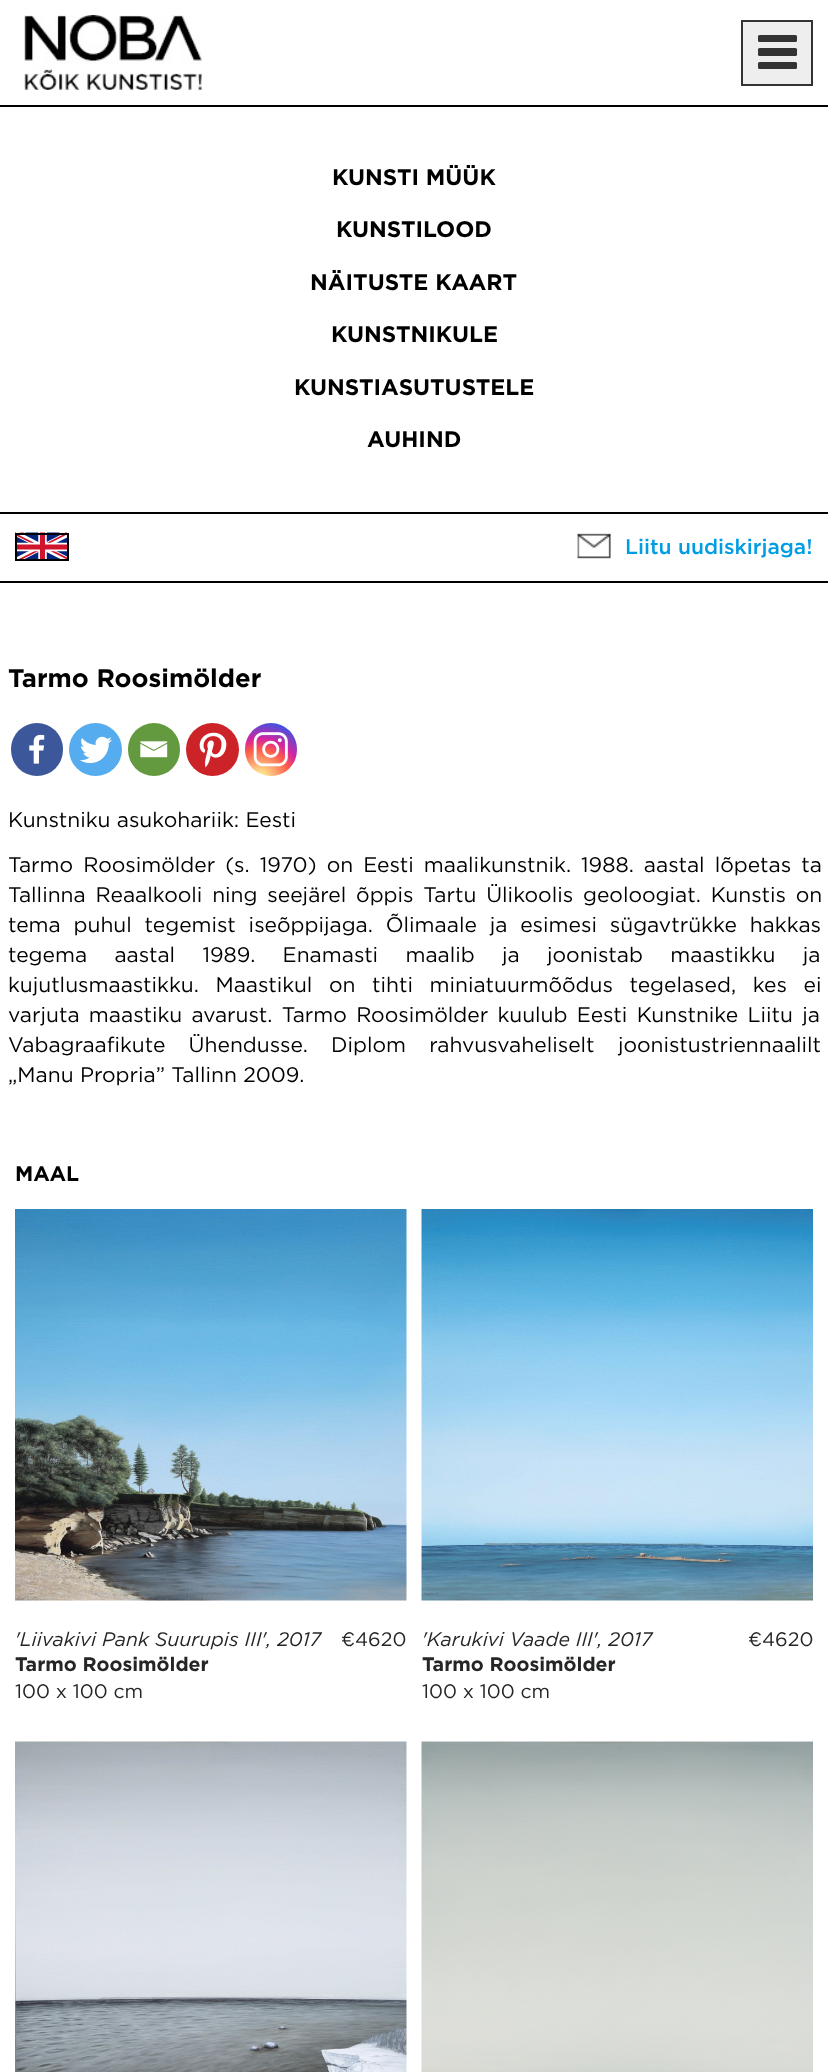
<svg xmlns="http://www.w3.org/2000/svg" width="828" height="2072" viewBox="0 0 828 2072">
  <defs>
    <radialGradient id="g1" gradientUnits="userSpaceOnUse" cx="260" cy="779" r="67"><stop offset="0" stop-color="#fdf497"/><stop offset="0.05" stop-color="#fdf497"/><stop offset="0.45" stop-color="#fd5949"/><stop offset="0.6" stop-color="#d6249f"/><stop offset="0.9" stop-color="#285aeb"/></radialGradient>
  </defs>
  <rect width="100%" height="100%" fill="#fff"/>
  <path d="M0 105h828v2H0z" fill="#000"/>
  <image x="24" y="15" width="178" height="75" href="img/1.png"/>
  <path d="M742 21h70v64H742z" fill="#eee" stroke="#333" stroke-width="2"/>
  <rect x="758" y="35" width="39" height="7" rx="1.5" fill="#333"/>
  <rect x="758" y="48" width="39" height="8" rx="1.5" fill="#333"/>
  <rect x="758" y="62" width="39" height="7" rx="1.5" fill="#333"/>
  <path d="M0 512h828v2H0z" fill="#000"/>
  <path d="M0 581h828v2H0z" fill="#000"/>
  <image x="15" y="532" width="54" height="27" href="img/2.png"/>
  <path d="M16 534h52v26H16z" fill="none" stroke="#000" stroke-width="2"/>
  <image x="577" y="533" width="34" height="26" href="img/3.png"/>
  <rect x="11" y="723" width="52" height="53" rx="26" fill="#3c589a"/>
  <image x="29" y="734" width="16" height="30" href="img/4.png"/>
  <circle cx="95.5" cy="749.5" r="26.5" fill="#55acee"/>
  <image x="80" y="736" width="32" height="28" href="img/5.png"/>
  <rect x="128" y="723" width="52" height="53" rx="26" fill="#649a3f"/>
  <image x="140" y="741" width="28" height="17" href="img/6.png"/>
  <circle cx="212.5" cy="749.5" r="26.5" fill="#cc2329"/>
  <image x="199" y="732" width="28" height="36" href="img/7.png"/>
  <rect x="245" y="723" width="52" height="53" rx="26" fill="url(#g1)"/>
  <image x="253" y="732" width="35" height="35" href="img/8.png"/>
  <image x="15" y="1209" width="392" height="392" href="img/9.png"/>
  <image x="421" y="1209" width="392" height="392" href="img/10.png"/>
  <image x="15" y="1741" width="392" height="331" href="img/11.png"/>
  <image x="421" y="1741" width="392" height="331" href="img/12.png"/>
  <g font-family="Gotham" font-size="22.5" font-weight="bold" fill="#000">
    <text x="332" y="185">KUNSTI MÜÜK</text>
    <text x="336" y="237">KUNSTILOOD</text>
    <text x="310" y="290">NÄITUSTE KAART</text>
    <text x="331" y="342">KUNSTNIKULE</text>
    <text x="294" y="395">KUNSTIASUTUSTELE</text>
    <text x="367" y="447">AUHIND</text>
  </g>
  <text x="625" y="554" font-family="Gotham" font-size="21" font-weight="500" fill="#009de2">Liitu uudiskirjaga!</text>
  <text x="8" y="687" font-family="Gotham" font-size="25.5" font-weight="bold" fill="#000">Tarmo Roosimölder</text>
  <g font-family="Gotham" font-size="21" fill="#000">
    <text x="8" y="827">Kunstniku asukohariik: Eesti</text>
    <text x="8" y="872" word-spacing="3.75">Tarmo Roosimölder (s. 1970) on Eesti maalikunstnik. 1988. aastal lõpetas ta</text>
    <text x="8" y="902" word-spacing="3.5">Tallinna Reaalkooli ning seejärel õppis Tartu Ülikoolis geoloogiat. Kunstis on</text>
    <text x="8" y="932" word-spacing="6.5">tema puhul tegemist iseõppijaga. Õlimaale ja esimesi sügavtrükke hakkas</text>
    <text x="8" y="962" word-spacing="21">tegema aastal 1989. Enamasti maalib ja joonistab maastikku ja</text>
    <text x="8" y="992" word-spacing="10.25">kujutlusmaastikku. Maastikul on tihti miniatuurmõõdus tegelased, kes ei</text>
    <text x="8" y="1022" word-spacing="3">varjuta maastiku avarust. Tarmo Roosimölder kuulub Eesti Kunstnike Liitu ja</text>
    <text x="8" y="1052" word-spacing="17">Vabagraafikute Ühendusse. Diplom rahvusvaheliselt joonistustriennaalilt</text>
    <text x="8" y="1082">„Manu Propria” Tallinn 2009.</text>
  </g>
  <text x="15" y="1181" font-family="Gotham" font-size="21" font-weight="bold" fill="#000">MAAL</text>
  <text x="15" y="1646" font-family="Gotham" font-size="19.5" font-style="italic" fill="#242625">'Liivakivi Pank Suurupis III', 2017</text>
  <text x="341" y="1646" font-family="Gotham" font-size="19.5" fill="#242625">€4620</text>
  <text x="15" y="1671" font-family="Gotham" font-size="19.5" font-weight="bold" fill="#242625">Tarmo Roosimölder</text>
  <text x="15" y="1698" font-family="Gotham" font-size="19.5" fill="#242625">100 x 100 cm</text>
  <text x="422" y="1646" font-family="Gotham" font-size="19.5" font-style="italic" fill="#242625">'Karukivi Vaade III', 2017</text>
  <text x="748" y="1646" font-family="Gotham" font-size="19.5" fill="#242625">€4620</text>
  <text x="422" y="1671" font-family="Gotham" font-size="19.5" font-weight="bold" fill="#242625">Tarmo Roosimölder</text>
  <text x="422" y="1698" font-family="Gotham" font-size="19.5" fill="#242625">100 x 100 cm</text>
</svg>
